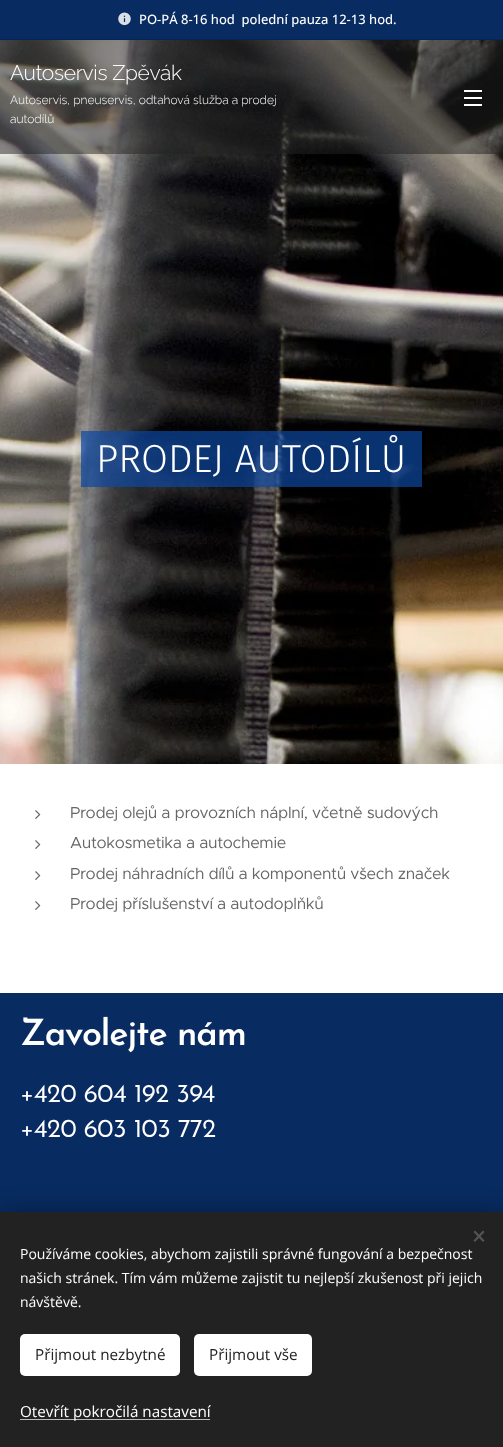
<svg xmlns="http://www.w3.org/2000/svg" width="503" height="1447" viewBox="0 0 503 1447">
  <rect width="100%" height="100%" fill="#fff"/>
  <path d="M0 0h503v39H0z" fill="#082b61"/>
  <image x="118" y="12" width="13" height="14" href="img/1.png"/>
  <path d="M0 39h503v1H0z" fill="#072552"/>
  <image x="0" y="40" width="503" height="724" href="img/2.png"/>
  <path d="M0 40h503v114H0z" fill="#22222280"/>
  <path d="M464 97h18v2H464z" fill="#fff"/>
  <path d="M464 90h18v2H464z" fill="#fff"/>
  <path d="M464 104h18v2H464z" fill="#fff"/>
  <path d="M81 431h15v56H81z" fill="#0d47a1b3"/>
  <path d="M407 431h15v56H407z" fill="#0d47a1b3"/>
  <path d="M96 431h311v56H96z" fill="#0d47a1b3"/>
  <image x="35" y="810" width="6" height="9" href="img/3.png"/>
  <image x="35" y="840" width="6" height="9" href="img/3.png"/>
  <image x="35" y="871" width="6" height="9" href="img/3.png"/>
  <image x="35" y="901" width="6" height="9" href="img/3.png"/>
  <path d="M0 993h503v219H0z" fill="#082b61"/>
  <path d="M0 1212h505v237H0z" fill="#00000054" filter="blur(12.5px)"/>
  <path d="M0 1212h503v235H0z" fill="#222"/>
  <path d="M473.5 1240.5L483 1230.5L484.5 1232L475 1242Z" fill="#555"/>
  <path d="M475 1230.5L484.5 1240.5L483 1242L473.5 1232Z" fill="#555"/>
  <rect x="20" y="1334" width="160" height="42" rx="5" fill="#fff"/>
  <rect x="194" y="1334" width="118" height="42" rx="5" fill="#fff"/>
  <path d="M20 1419h190v1H20z" fill="#bdbdbd"/>
  <text x="139" y="24" font-family="Open Sans" font-size="13" font-weight="500" fill="#fff" xml:space="preserve">PO-PÁ 8-16 hod  polední pauza 12-13 hod.</text>
  <text x="10" y="80" font-family="Raleway" font-size="21" font-weight="300" letter-spacing="-0.3" fill="#fff">Autoservis Zpěvák</text>
  <g font-family="Raleway" font-size="12" font-weight="300" fill="#fff">
    <text x="10" y="104">Autoservis, pneuservis, odtahová služba a prodej</text>
    <text x="10" y="123">autodílů</text>
  </g>
  <text x="96" y="472" font-family="Fira Sans" font-size="39" font-weight="300" fill="#fff">PRODEJ AUTODÍLŮ</text>
  <g font-family="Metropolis" font-size="16" letter-spacing="-0.3" fill="#666">
    <text x="70" y="818">Prodej olejů a provozních náplní, včetně sudových</text>
    <text x="70" y="848">Autokosmetika a autochemie</text>
    <text x="70" y="879">Prodej náhradních dílů a komponentů všech značek</text>
    <text x="70" y="909">Prodej příslušenství a autodoplňků</text>
  </g>
  <text x="20" y="1045" font-family="Josefin Sans" font-size="36" font-weight="600" letter-spacing="-1.1" fill="#fff">Zavolejte nám</text>
  <g font-family="Josefin Sans" font-size="26" letter-spacing="-0.5" fill="#fff">
    <text x="20" y="1102">+420 604 192 394</text>
    <text x="20" y="1137">+420 603 103 772</text>
  </g>
  <g font-family="Open Sans" font-size="14" fill="#fff">
    <text x="20" y="1259">Používáme cookies, abychom zajistili správné fungování a bezpečnost</text>
    <text x="20" y="1283">našich stránek. Tím vám můžeme zajistit tu nejlepší zkušenost při jejich</text>
    <text x="20" y="1307">návštěvě.</text>
  </g>
  <g font-family="Open Sans" font-size="15.25" fill="#222">
    <text x="35" y="1360">Přijmout nezbytné</text>
    <text x="209" y="1360">Přijmout vše</text>
  </g>
  <text x="20" y="1417" font-family="Open Sans" font-size="15.25" fill="#fff">Otevřít pokročilá nastavení</text>
</svg>
